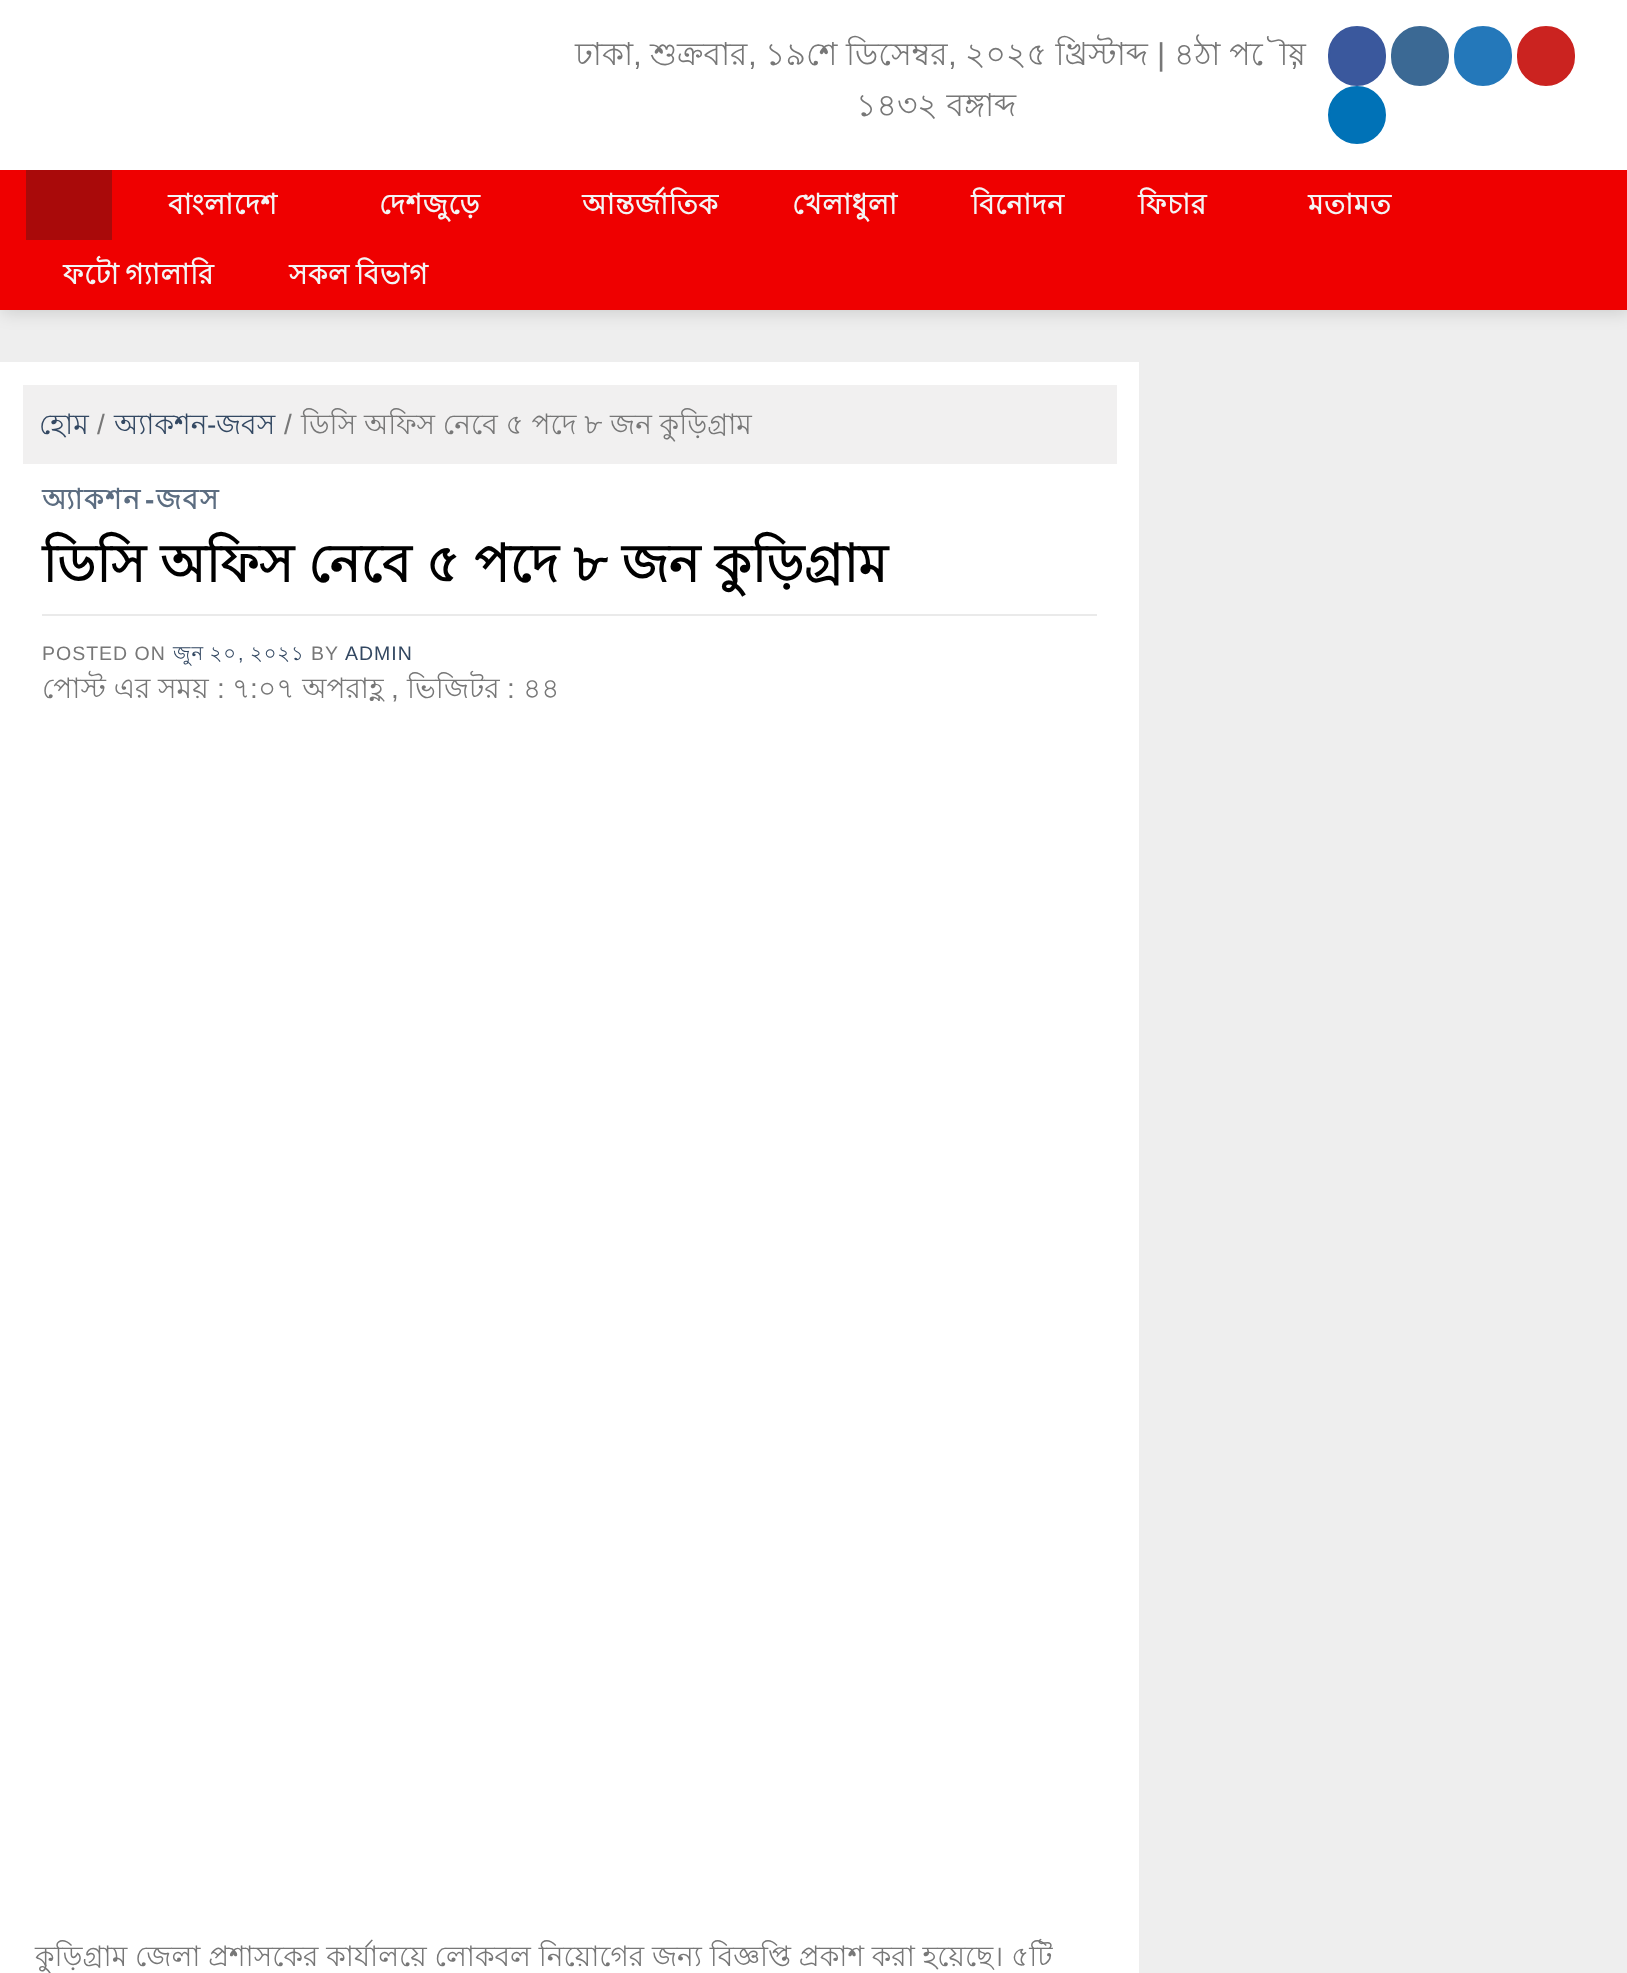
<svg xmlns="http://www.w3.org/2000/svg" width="1627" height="1973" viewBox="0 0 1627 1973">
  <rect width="100%" height="100%" fill="#eee"/>
  <path d="M2 2h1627v310H2z" fill="#00000026" filter="blur(9px)"/>
  <path d="M0 0h1627v170H0z" fill="#fff"/>
  <rect x="1329" y="27" width="56" height="58" rx="28" fill="#3a589d" stroke="#3a589d" stroke-width="2"/>
  <rect x="1392" y="27" width="56" height="58" rx="28" fill="#3b6994" stroke="#3b6994" stroke-width="2"/>
  <rect x="1455" y="27" width="56" height="58" rx="28" fill="#2478ba" stroke="#2478ba" stroke-width="2"/>
  <rect x="1518" y="27" width="56" height="58" rx="28" fill="#cb2320" stroke="#cb2320" stroke-width="2"/>
  <circle cx="1357" cy="115" r="28" fill="#0072b7" stroke="#0072b7" stroke-width="2"/>
  <path d="M0 170h1627v140H0z" fill="#ef0000"/>
  <path d="M26 170h86v70H26z" fill="#a90a0a"/>
  <path d="M0 362h1139v1611H0z" fill="#fff"/>
  <path d="M23 385h1094v79H23z" fill="#f1f0f0"/>
  <path d="M42 614h1055v2H42z" fill="#eaeaea"/>
  <text x="575" y="65" font-family="Lohit Bengali" font-size="31.5" fill="#777">ঢাকা</text>
  <text x="633" y="65" font-family="Liberation Sans" font-size="31.5" fill="#777">,</text>
  <text x="650" y="65" font-family="Lohit Bengali" font-size="31.5" fill="#777">শুক্রবার</text>
  <text x="748" y="65" font-family="Liberation Sans" font-size="31.5" fill="#777">,</text>
  <text x="765" y="65" font-family="Lohit Bengali" font-size="31.5" fill="#777">১৯শে ডিসেম্বর</text>
  <text x="948" y="65" font-family="Liberation Sans" font-size="31.5" fill="#777">,</text>
  <text x="965" y="65" font-family="Lohit Bengali" font-size="31.5" fill="#777">২০২৫ খ্রিস্টাব্দ</text>
  <text x="1157" y="65" font-family="Liberation Sans" font-size="31.5" fill="#777">|</text>
  <text x="1174" y="65" font-family="Lohit Bengali" font-size="31.5" fill="#777">৪ঠা পৌষ</text>
  <text x="1290" y="65" font-family="Liberation Sans" font-size="31.5" fill="#777">,</text>
  <text x="856" y="116" font-family="Lohit Bengali" font-size="31.5" fill="#777">১৪৩২ বঙ্গাব্দ</text>
  <g font-family="Lohit Bengali" font-size="28" font-weight="bold" letter-spacing="0.5" fill="#f4f4f4">
    <text x="168" y="214">বাংলাদেশ</text>
    <text x="379" y="214">দেশজুড়ে</text>
    <text x="582" y="214">আন্তর্জাতিক</text>
    <text x="792" y="214">খেলাধুলা</text>
    <text x="971" y="214">বিনোদন</text>
    <text x="1138" y="214">ফিচার</text>
    <text x="1308" y="214">মতামত</text>
    <text x="63" y="284" word-spacing="-2">ফটো গ্যালারি</text>
    <text x="289" y="284" word-spacing="-2">সকল বিভাগ</text>
  </g>
  <text x="39" y="434" font-family="Lohit Bengali" font-size="28" fill="#334862">হোম</text>
  <text x="97" y="434" font-family="Liberation Sans" font-size="28" fill="#777">/</text>
  <text x="114" y="434" font-family="Lohit Bengali" font-size="28" fill="#334862">অ্যাকশন</text>
  <text x="207" y="434" font-family="Liberation Sans" font-size="28" fill="#334862">-</text>
  <text x="216" y="434" font-family="Lohit Bengali" font-size="28" fill="#334862">জবস</text>
  <text x="284" y="434" font-family="Liberation Sans" font-size="28" fill="#777">/</text>
  <text x="301" y="434" font-family="Lohit Bengali" font-size="28" fill="#777">ডিসি অফিস নেবে ৫ পদে ৮ জন কুড়িগ্রাম</text>
  <text x="42" y="509" font-family="Lohit Bengali" font-size="28" font-weight="bold" letter-spacing="1.5" fill="#5c6d81">অ্যাকশন</text>
  <text x="145" y="509" font-family="Liberation Sans" font-size="28" font-weight="bold" letter-spacing="1.5" fill="#5c6d81">-</text>
  <text x="156" y="509" font-family="Lohit Bengali" font-size="28" font-weight="bold" letter-spacing="1.5" fill="#5c6d81">জবস</text>
  <text x="42" y="582" font-family="Lohit Bengali" font-size="52.5" font-weight="bold" fill="#000">ডিসি অফিস নেবে ৫ পদে ৮ জন কুড়িগ্রাম</text>
  <text x="42" y="660" font-family="Liberation Sans" font-size="19.5" letter-spacing="1" fill="#777">POSTED ON</text>
  <text x="173" y="660" word-spacing="-1" font-family="Lohit Bengali" font-size="19.5" letter-spacing="1" fill="#334862">জুন ২০</text>
  <text x="238" y="660" font-family="Liberation Sans" font-size="19.5" letter-spacing="1" fill="#334862">,</text>
  <text x="250" y="660" font-family="Lohit Bengali" font-size="19.5" letter-spacing="1" fill="#334862">২০২১</text>
  <text x="311" y="660" font-family="Liberation Sans" font-size="19.5" letter-spacing="1" fill="#777">BY</text>
  <text x="345" y="660" font-family="Liberation Sans" font-size="19.5" letter-spacing="1" fill="#334862">ADMIN</text>
  <text x="42" y="698" font-family="Lohit Bengali" font-size="28" fill="#777">পোস্ট এর সময়</text>
  <text x="217" y="698" font-family="Liberation Sans" font-size="28" fill="#777">:</text>
  <g font-family="Lohit Bengali" font-size="28" fill="#777">
    <text x="232" y="698">৭ ০৭ অপরাহ্ণ</text>
    <text x="407" y="698">ভিজিটর</text>
    <text x="523" y="698">৪৪</text>
  </g>
  <g font-family="Liberation Sans" font-size="28" fill="#777">
    <text x="250" y="698">:</text>
    <text x="391" y="698">,</text>
    <text x="507" y="698">:</text>
  </g>
  <text x="35" y="1966" font-family="Lohit Bengali" font-size="28" fill="#777">কুড়িগ্রাম জেলা প্রশাসকের কার্যালয়ে লোকবল নিয়োগের জন্য বিজ্ঞপ্তি প্রকাশ করা হয়েছে। ৫টি</text>
</svg>
